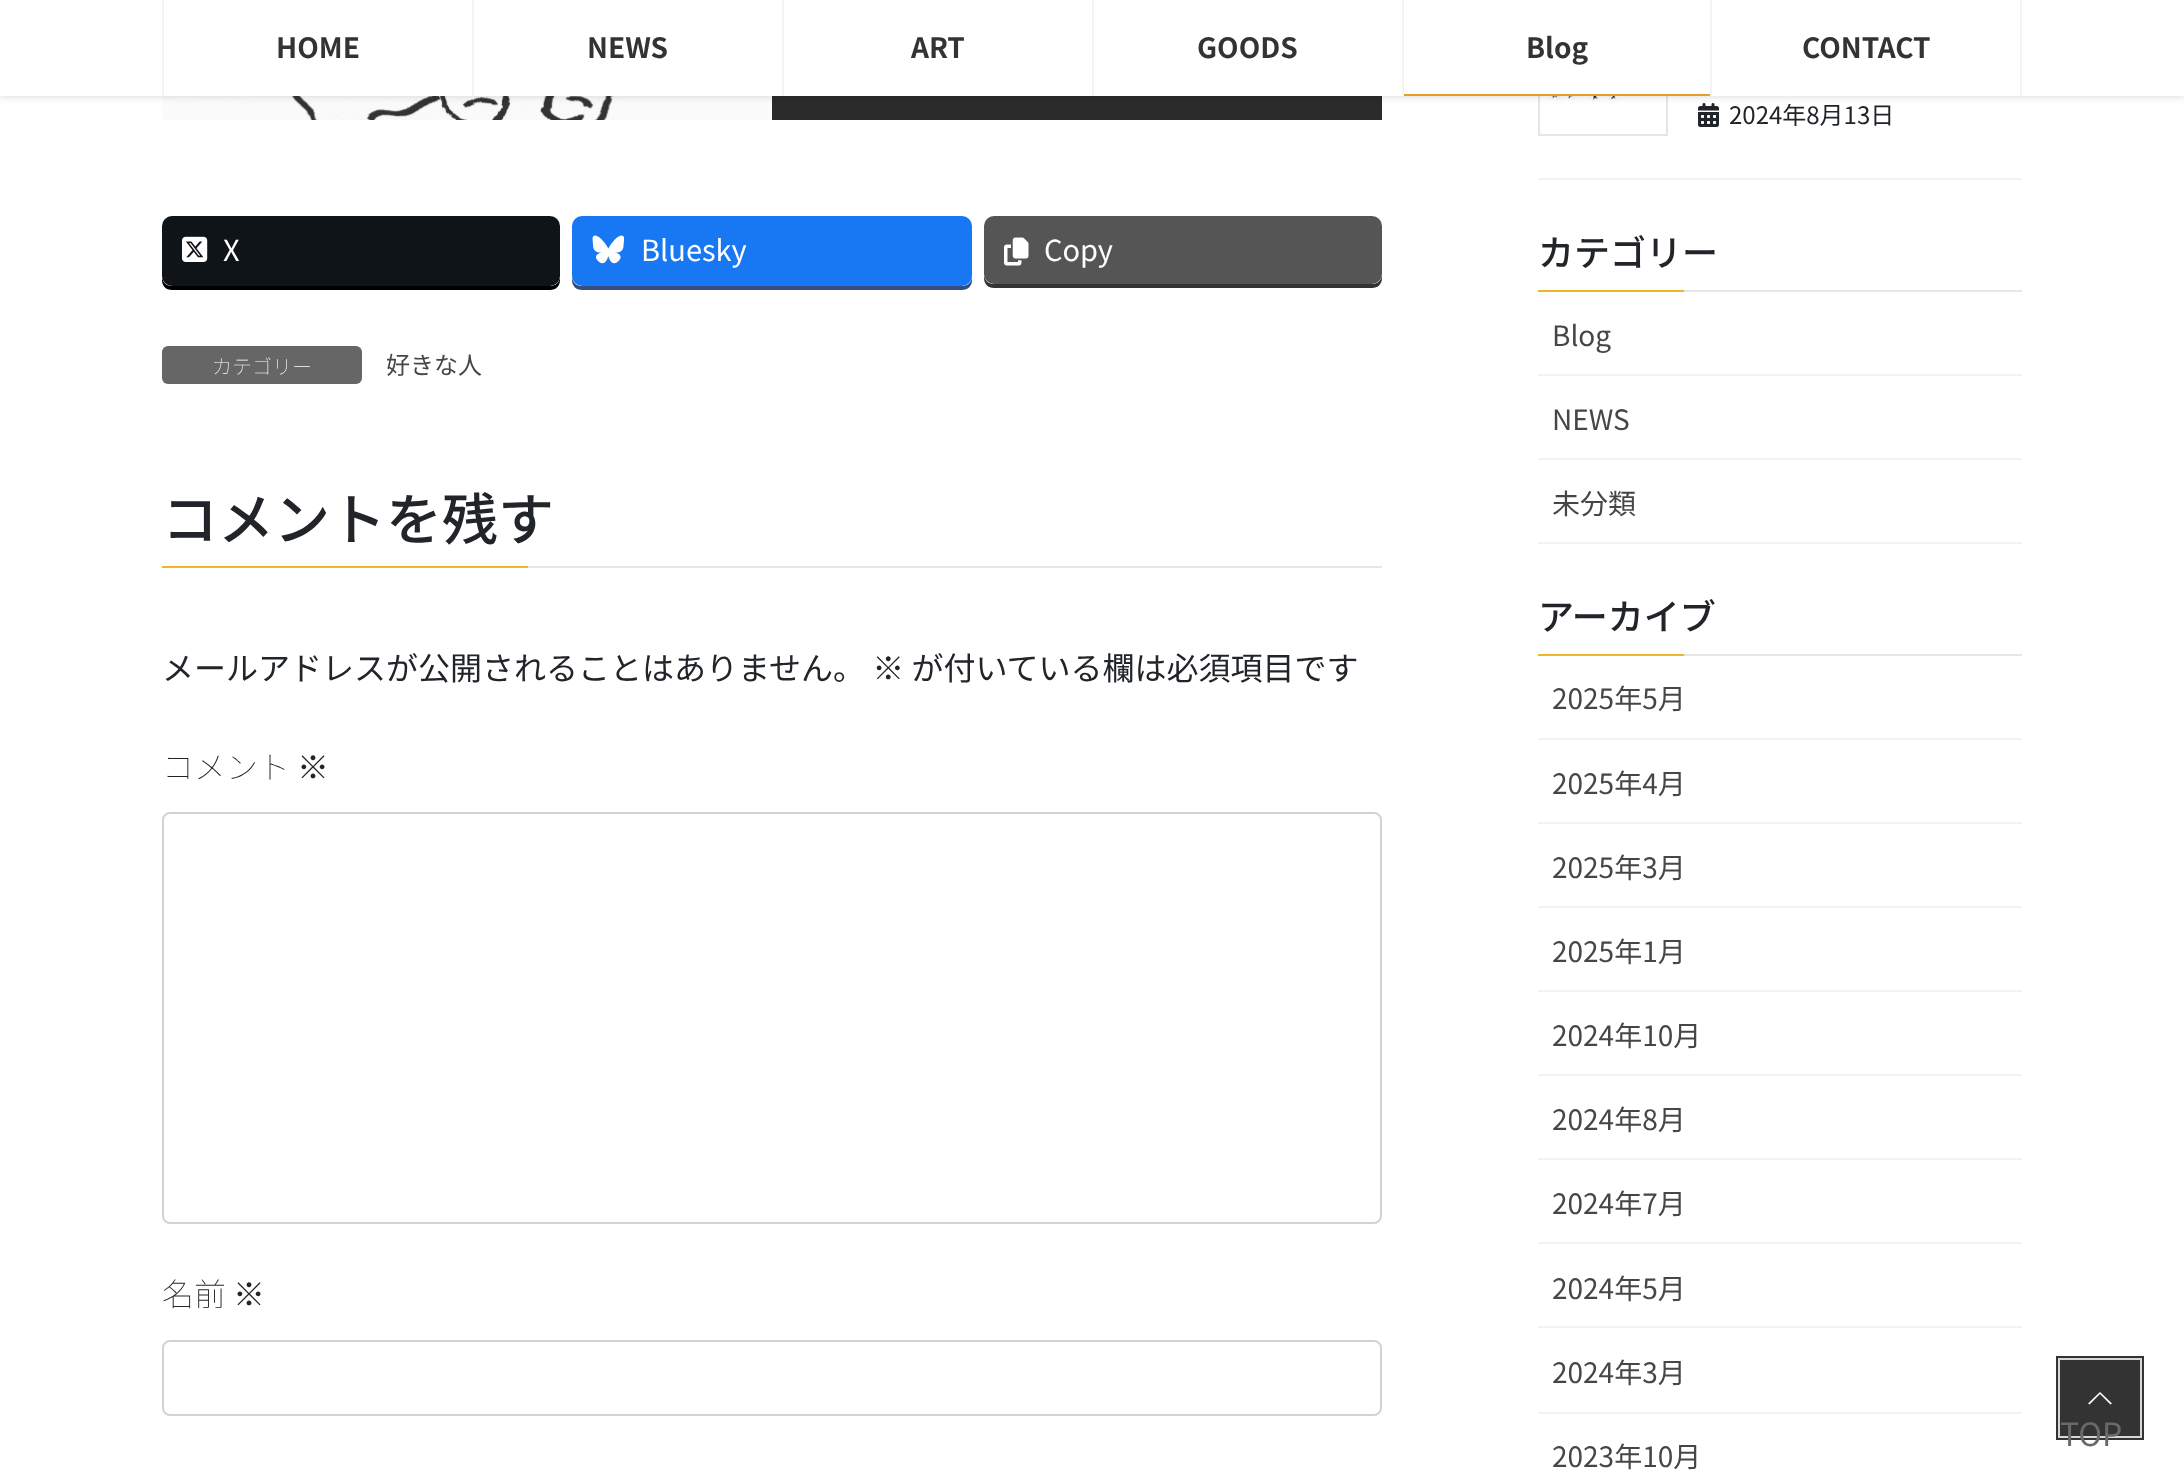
<svg xmlns="http://www.w3.org/2000/svg" width="2184" height="1480" viewBox="0 0 2184 1480">
  <rect width="100%" height="100%" fill="#fff"/>
  <path d="M772 96h610v24H772z" fill="#2b2b2b"/>
  <image x="162" y="96" width="610" height="24" href="img/1.png"/>
  <path d="M1539 7h128v128H1539z" fill="none" stroke="#e5e5e5" stroke-width="2"/>
  <image x="1542" y="96" width="122" height="5" href="img/5.png"/>
  <image x="1698" y="103" width="21" height="24" href="img/6.png"/>
  <path d="M0 2h2184v96H0z" fill="#0000001a" filter="blur(3px)"/>
  <path d="M0 0h2184v96H0z" fill="#fff"/>
  <path d="M162 0h2v96H162z" fill="#f5f5f5"/>
  <path d="M472 0h2v96H472z" fill="#f5f5f5"/>
  <path d="M782 0h2v96H782z" fill="#f5f5f5"/>
  <path d="M1092 0h2v96H1092z" fill="#f5f5f5"/>
  <path d="M1402 0h2v96H1402z" fill="#f5f5f5"/>
  <path d="M1404 94h306v2H1404z" fill="#e59f27"/>
  <path d="M2020 0h2v96H2020z" fill="#f5f5f5"/>
  <path d="M1710 0h2v96H1710z" fill="#f5f5f5"/>
  <path d="M162 276V280C162 286 166 290 172 290H550C556 290 560 286 560 280V276C560 282 556 286 550 286H172C166 286 162 282 162 276Z" fill="#000"/>
  <rect x="162" y="216" width="398" height="70" rx="10" fill="#0f1419"/>
  <image x="182" y="236" width="26" height="26" href="img/2.png"/>
  <path d="M572 276V280C572 286 576 290 582 290H962C968 290 972 286 972 280V276C972 282 968 286 962 286H582C576 286 572 282 572 276Z" fill="#344e84"/>
  <rect x="572" y="216" width="400" height="70" rx="10" fill="#1877f2"/>
  <image x="592" y="235" width="33" height="29" href="img/3.png"/>
  <path d="M984 274V278C984 284 988 288 994 288H1372C1378 288 1382 284 1382 278V274C1382 280 1378 284 1372 284H994C988 284 984 280 984 274Z" fill="#333"/>
  <rect x="984" y="216" width="398" height="68" rx="10" fill="#555"/>
  <image x="1004" y="237" width="25" height="29" href="img/4.png"/>
  <rect x="162" y="346" width="200" height="38" rx="6" fill="#666"/>
  <path d="M528 566h854v2H528z" fill="#e6e6e6"/>
  <path d="M162 566h366v2H162z" fill="#efb52d"/>
  <rect x="163" y="813" width="1218" height="410" rx="7" fill="none" stroke="#ced4da" stroke-width="2"/>
  <rect x="163" y="1341" width="1218" height="74" rx="7" fill="none" stroke="#ced4da" stroke-width="2"/>
  <path d="M1538 178h484v2H1538z" fill="#f2f2f2"/>
  <path d="M1684 290h338v2H1684z" fill="#e6e6e6"/>
  <path d="M1538 290h146v2H1538z" fill="#efb52d"/>
  <path d="M1538 374h484v2H1538z" fill="#f2f2f2"/>
  <path d="M1538 458h484v2H1538z" fill="#f2f2f2"/>
  <path d="M1538 542h484v2H1538z" fill="#f2f2f2"/>
  <path d="M1684 654h338v2H1684z" fill="#e6e6e6"/>
  <path d="M1538 654h146v2H1538z" fill="#efb52d"/>
  <path d="M1538 738h484v2H1538z" fill="#f2f2f2"/>
  <path d="M1538 822h484v2H1538z" fill="#f2f2f2"/>
  <path d="M1538 906h484v2H1538z" fill="#f2f2f2"/>
  <path d="M1538 990h484v2H1538z" fill="#f2f2f2"/>
  <path d="M1538 1074h484v2H1538z" fill="#f2f2f2"/>
  <path d="M1538 1158h484v2H1538z" fill="#f2f2f2"/>
  <path d="M1538 1242h484v2H1538z" fill="#f2f2f2"/>
  <path d="M1538 1326h484v2H1538z" fill="#f2f2f2"/>
  <path d="M1538 1412h484v2H1538z" fill="#f2f2f2"/>
  <path d="M2058 1358h84v80H2058z" fill="none" stroke="#333" stroke-width="4"/>
  <path d="M2059 1359h82v78H2059z" fill="none" stroke="#d6d6d6" stroke-width="2"/>
  <path d="M2060 1360h80v76H2060z" fill="#333"/>
  <path d="M2112 1403.5L2110.5 1404.5L2100 1394L2089.5 1404.5L2088 1403.5L2100 1392Z" fill="#fff"/>
  <g font-family="Noto Sans JP" font-size="28" font-weight="bold" fill="#333">
    <text x="276" y="58">HOME</text>
    <text x="587" y="58">NEWS</text>
    <text x="911" y="58">ART</text>
    <text x="1197" y="58">GOODS</text>
    <text x="1526" y="58">Blog</text>
    <text x="1802" y="58">CONTACT</text>
  </g>
  <g font-family="Noto Sans JP" font-size="29" fill="#fff">
    <text x="223" y="261">X</text>
    <text x="641" y="261">Bluesky</text>
    <text x="1044" y="261">Copy</text>
  </g>
  <text x="212" y="374" font-family="Noto Sans JP" font-size="20" font-weight="100" fill="#fff">カテゴリー</text>
  <text x="386" y="374" font-family="Noto Sans JP" font-size="24" fill="#464646">好きな人</text>
  <text x="162" y="540" font-family="Noto Sans JP" font-size="56" font-weight="500" fill="#212529">コメントを残す</text>
  <text x="162" y="680" font-family="Noto Sans JP" font-size="32" fill="#212529">メールアドレスが公開されることはありません。 ※ が付いている欄は必須項目です</text>
  <g font-family="Noto Sans JP" font-size="32" font-weight="100" fill="#212529">
    <text x="162" y="779">コメント ※</text>
    <text x="162" y="1306">名前 ※</text>
  </g>
  <text x="1729" y="124" font-family="Noto Sans JP" font-size="24" fill="#212529">2024年8月13日</text>
  <text x="1538" y="266" font-family="Noto Sans JP" font-size="36" font-weight="500" fill="#212529">カテゴリー</text>
  <g font-family="Noto Sans JP" font-size="28" fill="#464646">
    <text x="1552" y="346">Blog</text>
    <text x="1552" y="430">NEWS</text>
    <text x="1552" y="514">未分類</text>
  </g>
  <text x="1538" y="630" font-family="Noto Sans JP" font-size="36" font-weight="500" fill="#212529">アーカイブ</text>
  <g font-family="Noto Sans JP" font-size="28" fill="#464646">
    <text x="1552" y="709">2025年5月</text>
    <text x="1552" y="794">2025年4月</text>
    <text x="1552" y="878">2025年3月</text>
    <text x="1552" y="962">2025年1月</text>
    <text x="1552" y="1046">2024年10月</text>
    <text x="1552" y="1130">2024年8月</text>
    <text x="1552" y="1214">2024年7月</text>
    <text x="1552" y="1299">2024年5月</text>
    <text x="1552" y="1383">2024年3月</text>
    <text x="1552" y="1467">2023年10月</text>
  </g>
  <text x="2060" y="1446" font-family="Noto Sans JP" font-size="32" fill="#696969">TOP</text>
</svg>
